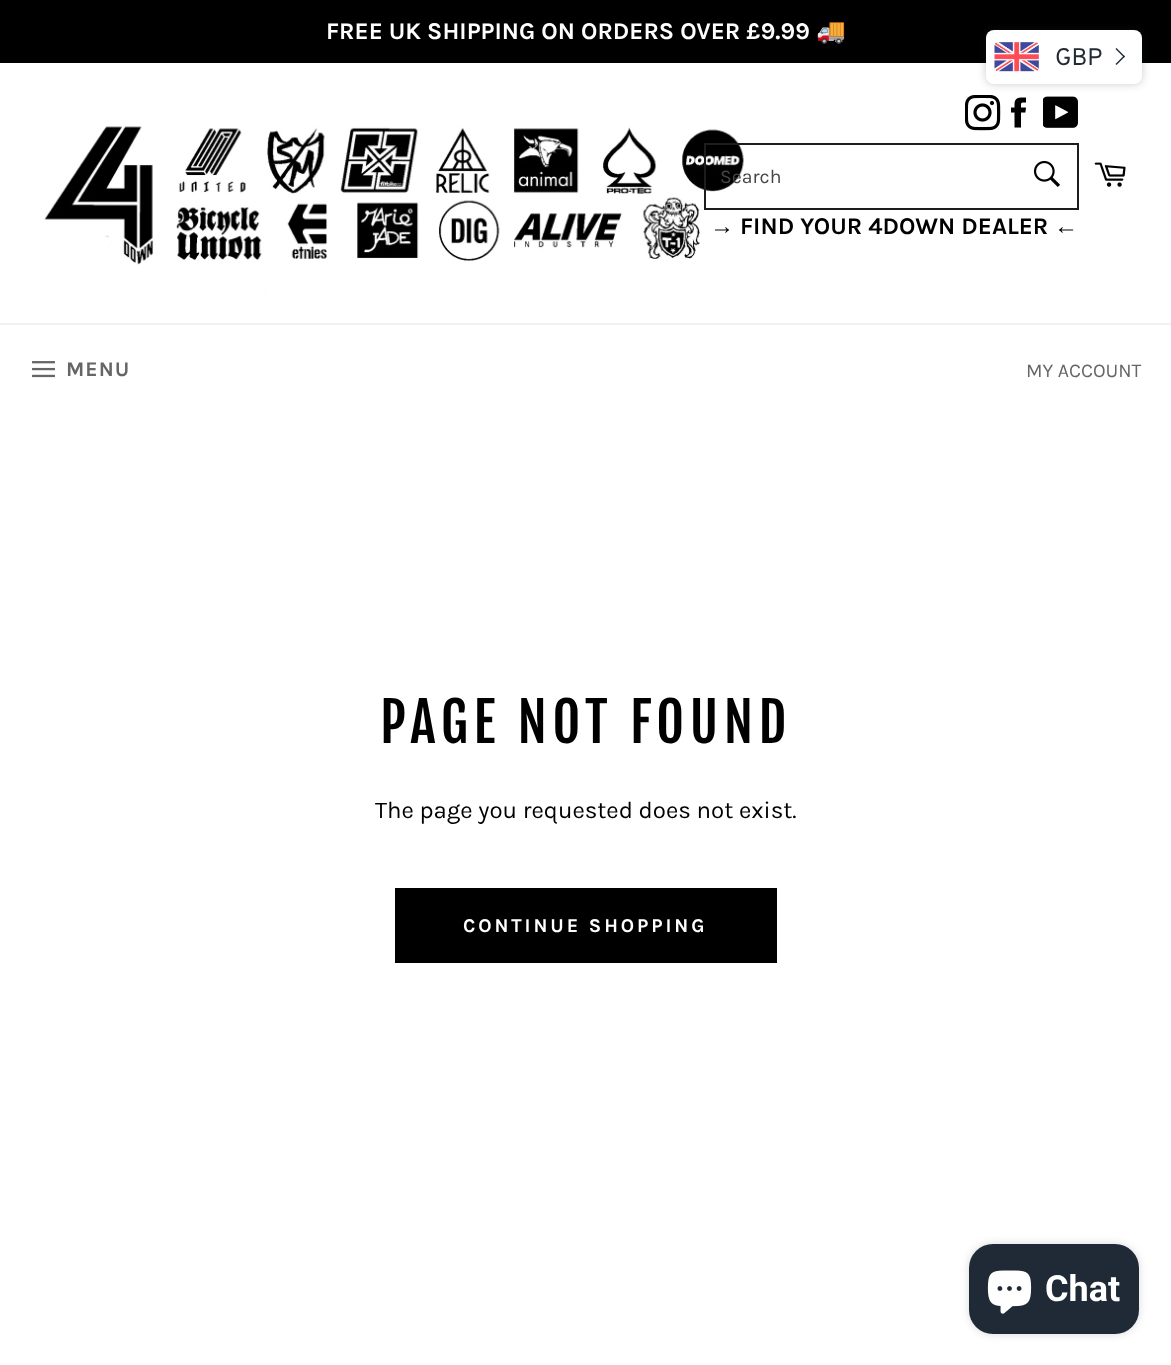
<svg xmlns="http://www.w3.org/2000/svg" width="1171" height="1365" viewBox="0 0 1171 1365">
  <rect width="100%" height="100%" fill="#fff"/>
  <path d="M0 0h1171v63H0z" fill="#000"/>
  <image x="44" y="126" width="700" height="167" href="img/1.png"/>
  <image x="965" y="95" width="36" height="36" href="img/2.png"/>
  <image x="1011" y="97" width="15" height="31" href="img/3.png"/>
  <image x="1043" y="96" width="35" height="32" href="img/4.png"/>
  <path d="M705 144h373v65H705z" fill="none" stroke="#1c1d1d" stroke-width="2"/>
  <image x="1033" y="160" width="27" height="27" href="img/5.png"/>
  <image x="1094" y="162" width="32" height="25" href="img/6.png"/>
  <path d="M0 323h1171v2H0z" fill="#f2f2f2"/>
  <image x="32" y="361" width="23" height="17" href="img/7.png"/>
  <rect x="986" y="30" width="156" height="54" rx="8" fill="#212b3640" filter="blur(4px)"/>
  <rect x="986" y="30" width="156" height="54" rx="8" fill="#fff"/>
  <image x="994" y="42" width="45" height="30" href="img/8.png"/>
  <path d="M1115.5 49L1116.5 48L1125 56.5L1124 57.5Z" fill="#212b36"/>
  <path d="M1115.5 64L1124 55.5L1125 56.5L1116.5 65Z" fill="#212b36"/>
  <path d="M395 888h382v75H395z" fill="#000"/>
  <rect x="969" y="1244" width="170" height="90" rx="24" fill="#00000026" filter="blur(4px)"/>
  <rect x="969" y="1244" width="170" height="90" rx="24" fill="#202a36"/>
  <image x="987" y="1270" width="45" height="44" href="img/9.png"/>
  <text x="326" y="39" font-family="Karla" font-size="24" font-weight="bold" fill="#fff">FREE UK SHIPPING ON ORDERS OVER £9.99</text>
  <text x="816" y="39" font-family="Noto Color Emoji" font-size="24" font-weight="bold" fill="#fff">🚚</text>
  <text x="720" y="183" font-family="Karla" font-size="19.5" fill="#464646">Search</text>
  <text x="710" y="234" font-family="Liberation Sans" font-size="24" font-weight="bold" fill="#000">→</text>
  <text x="740" y="234" font-family="Karla" font-size="24" font-weight="bold" fill="#000">FIND YOUR 4DOWN DEALER</text>
  <text x="1054" y="234" font-family="Liberation Sans" font-size="24" font-weight="bold" fill="#000">←</text>
  <text x="66" y="376" font-family="Karla" font-size="21" font-weight="bold" letter-spacing="1" fill="#666">MENU</text>
  <text x="1026" y="377" font-family="Karla" font-size="19.5" fill="#666">MY ACCOUNT</text>
  <text x="1055" y="65" font-family="Overpass" font-size="24" fill="#212b36">GBP</text>
  <text x="380" y="743" font-family="Fjalla One" font-size="54" letter-spacing="5.4" fill="#000">PAGE NOT FOUND</text>
  <text x="375" y="818" font-family="Karla" font-size="24" fill="#000">The page you requested does not exist.</text>
  <text x="463" y="932" font-family="Karla" font-size="19.5" font-weight="bold" letter-spacing="2.9" fill="#fff">CONTINUE SHOPPING</text>
  <text x="1045" y="1301" font-family="Roboto" font-size="36" font-weight="bold" fill="#fff">Chat</text>
</svg>
